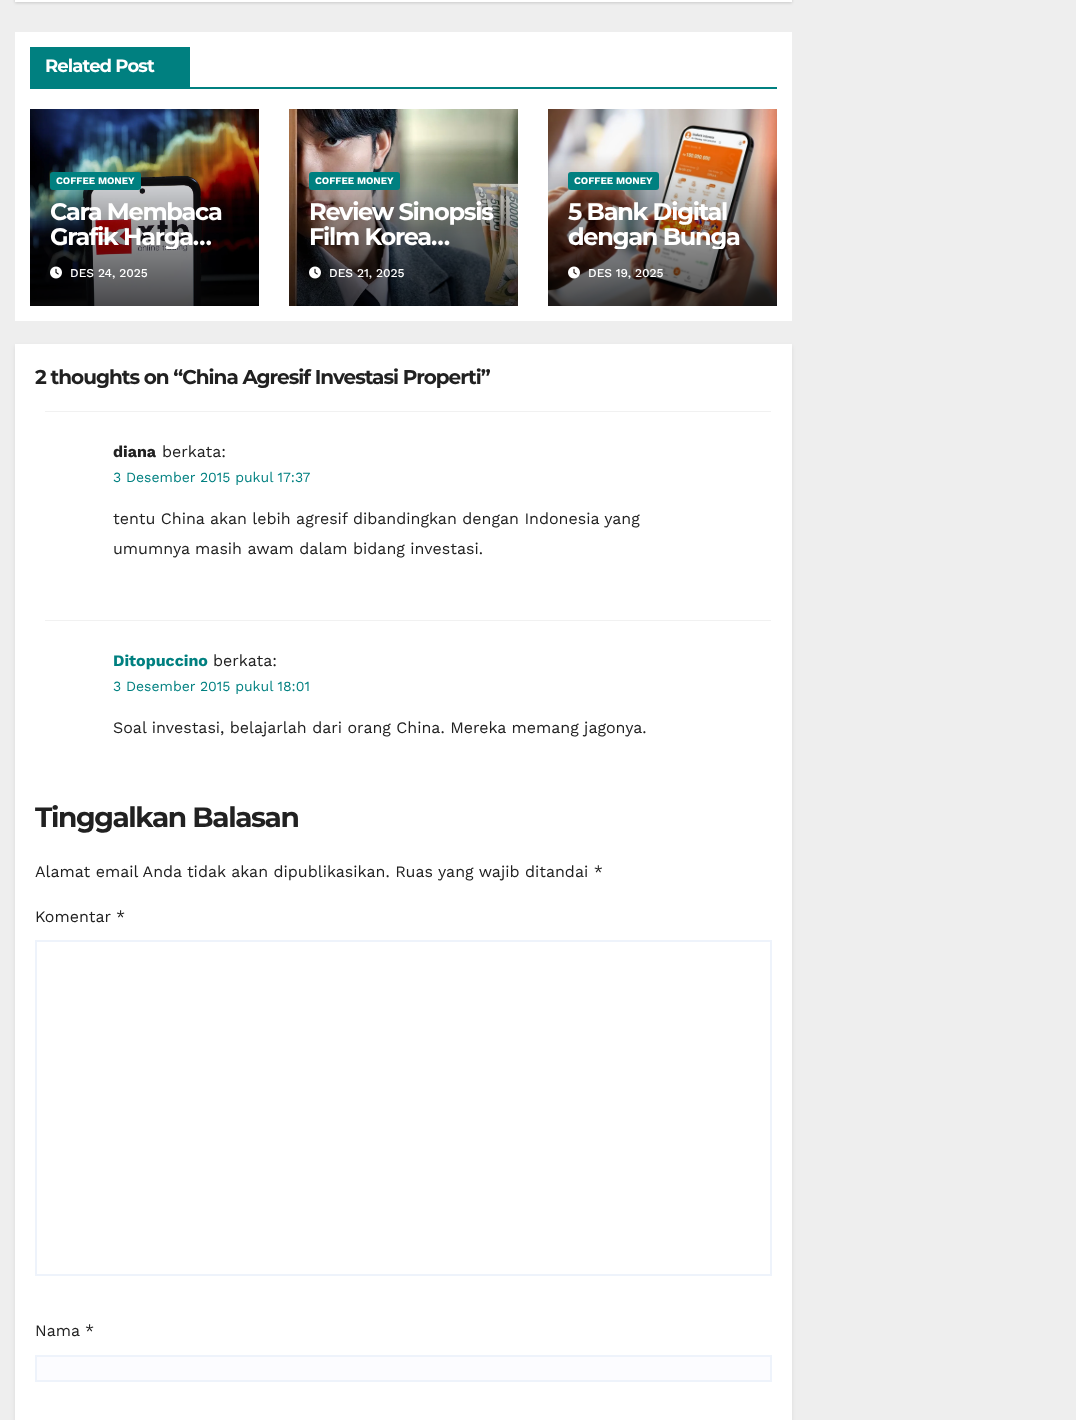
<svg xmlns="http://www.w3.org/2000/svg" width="1076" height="1420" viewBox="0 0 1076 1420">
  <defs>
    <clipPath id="clip1"><path d="M50 199h189v50H50z"/></clipPath>
    <clipPath id="clip2"><path d="M568 199h189v50H568z"/></clipPath>
  </defs>
  <rect width="100%" height="100%" fill="#eee"/>
  <path d="M15 -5h777v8H15z" fill="#00000026" filter="blur(1.5px)"/>
  <path d="M15 0h777v2H15z" fill="#fff"/>
  <path d="M15 32h777v289H15z" fill="#fff"/>
  <path d="M30 87h747v2H30z" fill="#008080"/>
  <path d="M30 47h160v40H30z" fill="#008080"/>
  <image x="30" y="109" width="229" height="197" href="img/1.png"/>
  <rect x="50" y="172" width="91" height="18" rx="3" fill="#008080"/>
  <image x="50" y="266" width="12" height="13" href="img/2.png"/>
  <image x="289" y="109" width="229" height="197" href="img/3.png"/>
  <rect x="309" y="172" width="91" height="18" rx="3" fill="#008080"/>
  <image x="309" y="266" width="12" height="13" href="img/4.png"/>
  <image x="548" y="109" width="229" height="197" href="img/5.png"/>
  <rect x="568" y="172" width="91" height="18" rx="3" fill="#008080"/>
  <image x="568" y="266" width="12" height="13" href="img/6.png"/>
  <path d="M15 346h777v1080H15z" fill="#00000014" filter="blur(2px)"/>
  <path d="M15 344h777v1076H15z" fill="#fff"/>
  <path d="M45 411h726v1H45z" fill="#f1f1f1"/>
  <path d="M45 620h726v1H45z" fill="#f1f1f1"/>
  <path d="M36 941h735v334H36z" fill="none" stroke="#eef3fb" stroke-width="2"/>
  <path d="M36 1356h735v25H36z" fill="#fcfcff" stroke="#eef3fb" stroke-width="2"/>
  <text x="45" y="72" font-family="Montserrat" font-size="18" font-weight="bold" letter-spacing="-0.9" fill="#fff">Related Post</text>
  <text x="56" y="184" font-family="Work Sans" font-size="10" font-weight="bold" fill="#fff">COFFEE MONEY</text>
  <text x="50" y="220" font-family="Montserrat" font-size="24" font-weight="bold" letter-spacing="-1.25" fill="#fff">Cara Membaca</text>
  <g clip-path="url(#clip1)">
    <text x="50" y="245" font-family="Montserrat" font-size="24" font-weight="bold" letter-spacing="-1.25" fill="#fff">Grafik Harga…</text>
  </g>
  <text x="70" y="277" font-family="Work Sans" font-size="12" font-weight="500" fill="#fff">DES 24, 2025</text>
  <text x="315" y="184" font-family="Work Sans" font-size="10" font-weight="bold" fill="#fff">COFFEE MONEY</text>
  <g font-family="Montserrat" font-size="24" font-weight="bold" letter-spacing="-1.25" fill="#fff">
    <text x="309" y="220">Review Sinopsis</text>
    <text x="309" y="245">Film Korea…</text>
  </g>
  <text x="329" y="277" font-family="Work Sans" font-size="12" font-weight="500" fill="#fff">DES 21, 2025</text>
  <text x="574" y="184" font-family="Work Sans" font-size="10" font-weight="bold" fill="#fff">COFFEE MONEY</text>
  <text x="568" y="220" font-family="Montserrat" font-size="24" font-weight="bold" letter-spacing="-1.25" fill="#fff">5 Bank Digital</text>
  <g clip-path="url(#clip2)">
    <text x="568" y="245" font-family="Montserrat" font-size="24" font-weight="bold" letter-spacing="-1.25" fill="#fff">dengan Bunga</text>
  </g>
  <text x="588" y="277" font-family="Work Sans" font-size="12" font-weight="500" fill="#fff">DES 19, 2025</text>
  <text x="35" y="384" font-family="Montserrat" font-size="20" font-weight="bold" letter-spacing="-1" fill="#212121">2 thoughts on “China Agresif Investasi Properti”</text>
  <text x="113" y="457" font-family="Work Sans" font-size="16" font-weight="bold" fill="#212121">diana</text>
  <text x="162" y="457" font-family="Work Sans" font-size="16" fill="#212121">berkata:</text>
  <text x="113" y="482" font-family="Work Sans" font-size="14" fill="#008080">3 Desember 2015 pukul 17:37</text>
  <g font-family="Work Sans" font-size="16" fill="#212121">
    <text x="113" y="524">tentu China akan lebih agresif dibandingkan dengan Indonesia yang</text>
    <text x="113" y="554">umumnya masih awam dalam bidang investasi.</text>
  </g>
  <text x="113" y="666" font-family="Work Sans" font-size="16" font-weight="bold" fill="#008080">Ditopuccino</text>
  <text x="213" y="666" font-family="Work Sans" font-size="16" fill="#212121">berkata:</text>
  <text x="113" y="691" font-family="Work Sans" font-size="14" fill="#008080">3 Desember 2015 pukul 18:01</text>
  <text x="113" y="733" font-family="Work Sans" font-size="16" fill="#212121">Soal investasi, belajarlah dari orang China. Mereka memang jagonya.</text>
  <text x="35" y="827" font-family="Montserrat" font-size="28" font-weight="bold" letter-spacing="-1.4" fill="#212121">Tinggalkan Balasan</text>
  <g font-family="Work Sans" font-size="16" fill="#212121">
    <text x="35" y="877">Alamat email Anda tidak akan dipublikasikan. Ruas yang wajib ditandai *</text>
    <text x="35" y="922">Komentar *</text>
    <text x="35" y="1336">Nama *</text>
  </g>
</svg>
